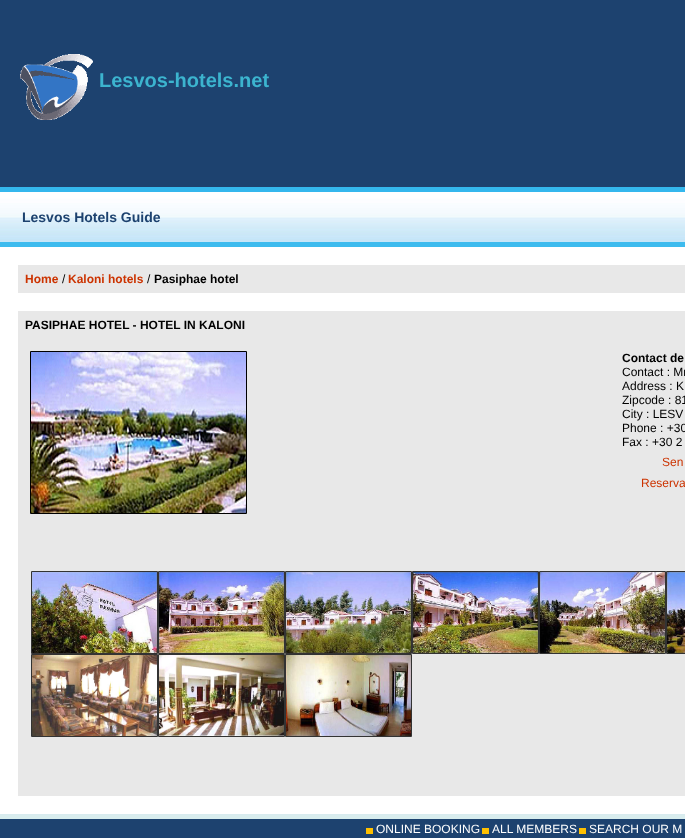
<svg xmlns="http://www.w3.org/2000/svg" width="685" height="838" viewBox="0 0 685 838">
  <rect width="100%" height="100%" fill="#fff"/>
  <image x="0" y="187" width="685" height="632" href="img/1.png"/>
  <path d="M0 0h685v187H0z" fill="#1d426f"/>
  <image x="20" y="54" width="73" height="66" href="img/2.png"/>
  <image x="0" y="192" width="20" height="50" href="img/3.png"/>
  <image x="20" y="192" width="665" height="50" href="img/4.png"/>
  <path d="M0 247h685v567H0z" fill="#fff"/>
  <path d="M18 265h667v28H18z" fill="#e8e8e8"/>
  <path d="M18 311h667v485H18z" fill="#e8e8e8"/>
  <path d="M30.5 351.5h216v162H30.5z" fill="none" stroke="#000"/>
  <image x="31" y="352" width="215" height="161" href="img/5.png"/>
  <path d="M31.5 571.5h126v82H31.5z" fill="none" stroke="#333"/>
  <image x="32" y="572" width="125" height="81" href="img/6.png"/>
  <path d="M158.5 571.5h126v82H158.5z" fill="none" stroke="#333"/>
  <image x="159" y="572" width="125" height="81" href="img/7.png"/>
  <path d="M285.5 571.5h126v82H285.5z" fill="none" stroke="#333"/>
  <image x="286" y="572" width="125" height="81" href="img/8.png"/>
  <path d="M412.5 571.5h126v82H412.5z" fill="none" stroke="#333"/>
  <image x="413" y="572" width="125" height="81" href="img/9.png"/>
  <path d="M539.5 571.5h126v82H539.5z" fill="none" stroke="#333"/>
  <image x="540" y="572" width="125" height="81" href="img/10.png"/>
  <path d="M666.5 571.5h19v82H666.5z" fill="none" stroke="#333"/>
  <image x="667" y="572" width="18" height="81" href="img/11.png"/>
  <path d="M31.5 654.5h126v82H31.5z" fill="none" stroke="#333"/>
  <image x="32" y="655" width="125" height="81" href="img/12.png"/>
  <path d="M158.5 654.5h126v82H158.5z" fill="none" stroke="#333"/>
  <image x="159" y="655" width="125" height="81" href="img/13.png"/>
  <path d="M285.5 654.5h126v82H285.5z" fill="none" stroke="#333"/>
  <image x="286" y="655" width="125" height="81" href="img/14.png"/>
  <path d="M0 819h685v19H0z" fill="#1d426f"/>
  <path d="M366 828h7v6H366z" fill="#ffc000"/>
  <path d="M482 828h7v6H482z" fill="#ffc000"/>
  <path d="M579 828h7v6H579z" fill="#ffc000"/>
  <text x="99" y="87" font-family="Liberation Sans" font-size="20" font-weight="bold" fill="#3cb4cf">Lesvos-hotels.net</text>
  <text x="22" y="222" font-family="Liberation Sans" font-size="14" font-weight="bold" fill="#1d426f">Lesvos Hotels Guide</text>
  <text x="25" y="283" font-family="Liberation Sans" font-size="12" font-weight="bold" fill="#c30">Home</text>
  <text x="62" y="283" font-family="Liberation Sans" font-size="12" fill="#000">/</text>
  <text x="68" y="283" font-family="Liberation Sans" font-size="12" font-weight="bold" fill="#c30">Kaloni hotels</text>
  <text x="147" y="283" font-family="Liberation Sans" font-size="12" fill="#000">/</text>
  <g font-family="Liberation Sans" font-size="12" font-weight="bold" fill="#000">
    <text x="154" y="283">Pasiphae hotel</text>
    <text x="25" y="329">PASIPHAE HOTEL - HOTEL IN KALONI</text>
    <text x="622" y="362">Contact de</text>
  </g>
  <g font-family="Liberation Sans" font-size="12" fill="#000">
    <text x="622" y="376">Contact : Mr</text>
    <text x="622" y="390">Address : K</text>
    <text x="622" y="404">Zipcode : 81</text>
    <text x="622" y="418">City : LESV</text>
    <text x="622" y="432">Phone : +30</text>
    <text x="622" y="446">Fax : +30 2</text>
  </g>
  <g font-family="Liberation Sans" font-size="12" fill="#c30">
    <text x="662" y="466">Sen</text>
    <text x="641" y="487">Reserva</text>
  </g>
  <g font-family="Liberation Sans" font-size="12" fill="#fff">
    <text x="376" y="833">ONLINE BOOKING</text>
    <text x="492" y="833">ALL MEMBERS</text>
    <text x="589" y="833">SEARCH OUR M</text>
  </g>
</svg>
